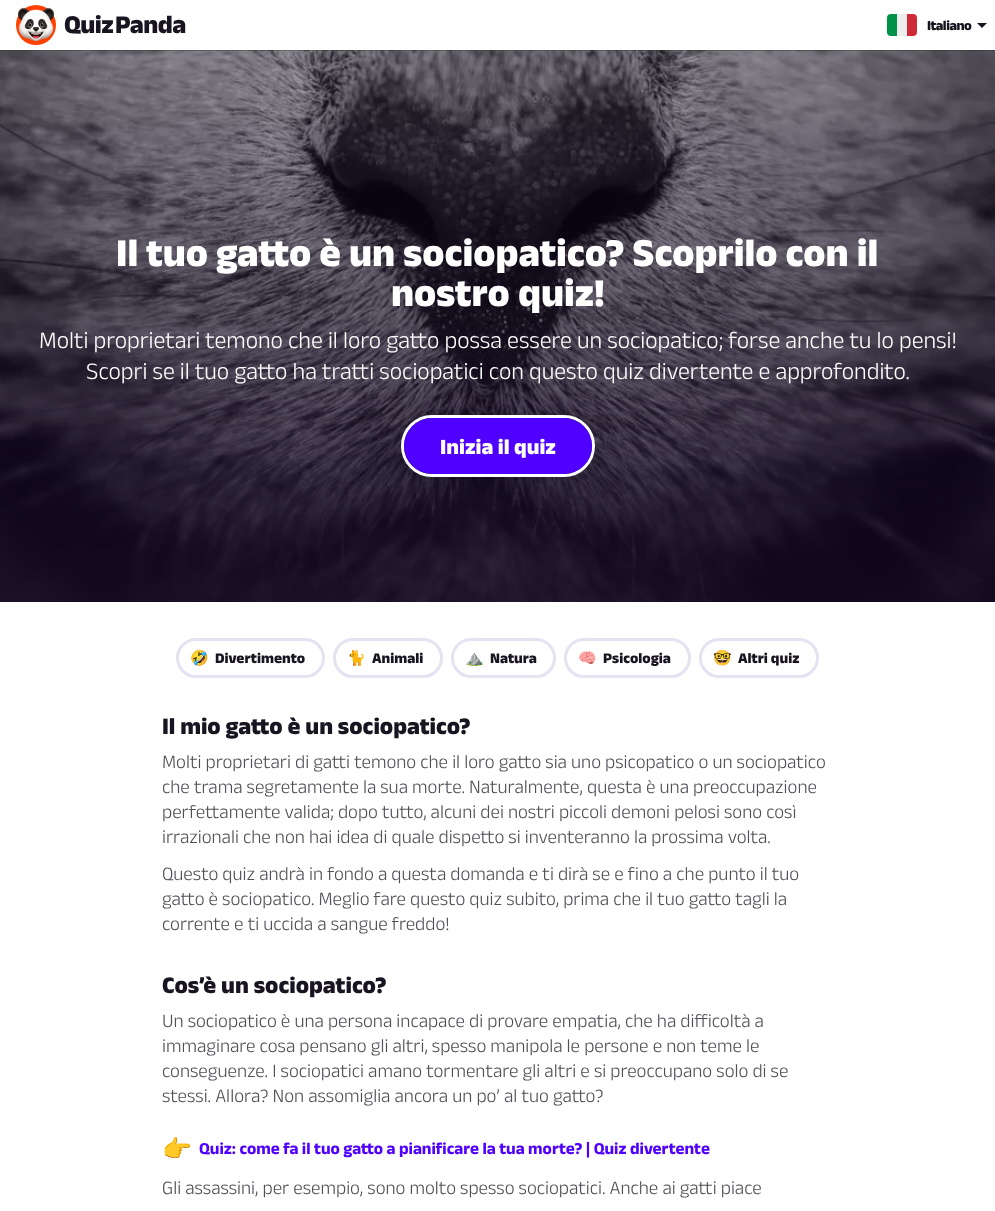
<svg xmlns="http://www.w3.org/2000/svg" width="995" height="1211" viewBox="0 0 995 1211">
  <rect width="100%" height="100%" fill="#fff"/>
  <circle cx="36" cy="25" r="20" fill="#ff4100"/>
  <image x="18" y="7" width="36" height="35" href="img/1.png"/>
  <image x="887" y="14" width="30" height="22" href="img/2.png"/>
  <path d="M977 23H987L982 28Z" fill="#181420"/>
  <image x="0" y="50" width="995" height="552" href="img/3.png"/>
  <rect x="402.5" y="416.5" width="191" height="59" rx="29.5" fill="none" stroke="#fff" stroke-width="3"/>
  <rect x="404" y="418" width="188" height="56" rx="28" fill="#5000ff"/>
  <rect x="177.5" y="639.5" width="146" height="37" rx="18.5" fill="none" stroke="#e3e3f2" stroke-width="3"/>
  <rect x="334.5" y="639.5" width="107" height="37" rx="18.5" fill="none" stroke="#e3e3f2" stroke-width="3"/>
  <rect x="452.5" y="639.5" width="102" height="37" rx="18.5" fill="none" stroke="#e3e3f2" stroke-width="3"/>
  <rect x="565.5" y="639.5" width="124" height="37" rx="18.5" fill="none" stroke="#e3e3f2" stroke-width="3"/>
  <rect x="700.5" y="639.5" width="117" height="37" rx="18.5" fill="none" stroke="#e3e3f2" stroke-width="3"/>
  <g font-family="Anek Latin" font-size="26" font-weight="800" letter-spacing="-0.5" fill="#181420">
    <text x="64" y="33">Quiz</text>
    <text x="115" y="33">Panda</text>
  </g>
  <text x="927" y="30" font-family="Anek Latin" font-size="14" font-weight="800" letter-spacing="-0.5" fill="#181420">Italiano</text>
  <g font-family="Anek Latin" font-size="40" font-weight="800" fill="#fff">
    <text x="116" y="266">Il tuo gatto è un sociopatico? Scoprilo con il</text>
    <text x="391" y="306">nostro quiz!</text>
  </g>
  <g font-family="Anek Latin" font-size="24" font-weight="300" fill="#fff">
    <text x="39" y="348">Molti proprietari temono che il loro gatto possa essere un sociopatico; forse anche tu lo pensi!</text>
    <text x="86" y="379">Scopri se il tuo gatto ha tratti sociopatici con questo quiz divertente e approfondito.</text>
  </g>
  <text x="440" y="454" font-family="Anek Latin" font-size="22" font-weight="800" fill="#fff">Inizia il quiz</text>
  <text x="190" y="663" font-family="Noto Color Emoji" font-size="15" font-weight="bold" fill="#181420">🤣</text>
  <text x="215" y="663" font-family="Anek Latin" font-size="15" font-weight="800" fill="#181420">Divertimento</text>
  <text x="347" y="663" font-family="Noto Color Emoji" font-size="15" font-weight="bold" fill="#181420">🐈</text>
  <text x="372" y="663" font-family="Anek Latin" font-size="15" font-weight="800" fill="#181420">Animali</text>
  <text x="465" y="663" font-family="Noto Color Emoji" font-size="15" font-weight="bold" fill="#181420">⛰️</text>
  <text x="490" y="663" font-family="Anek Latin" font-size="15" font-weight="800" fill="#181420">Natura</text>
  <text x="578" y="663" font-family="Noto Color Emoji" font-size="15" font-weight="bold" fill="#181420">🧠</text>
  <text x="603" y="663" font-family="Anek Latin" font-size="15" font-weight="800" fill="#181420">Psicologia</text>
  <text x="713" y="663" font-family="Noto Color Emoji" font-size="15" font-weight="bold" fill="#181420">🤓</text>
  <text x="738" y="663" font-family="Anek Latin" font-size="15" font-weight="800" fill="#181420">Altri quiz</text>
  <text x="162" y="734" font-family="Anek Latin" font-size="24" font-weight="800" fill="#181420">Il mio gatto è un sociopatico?</text>
  <g font-family="Anek Latin" font-size="19.2" font-weight="300" fill="#504f57">
    <text x="162" y="768">Molti proprietari di gatti temono che il loro gatto sia uno psicopatico o un sociopatico</text>
    <text x="162" y="793">che trama segretamente la sua morte. Naturalmente, questa è una preoccupazione</text>
    <text x="162" y="818">perfettamente valida; dopo tutto, alcuni dei nostri piccoli demoni pelosi sono così</text>
    <text x="162" y="843">irrazionali che non hai idea di quale dispetto si inventeranno la prossima volta.</text>
    <text x="162" y="880">Questo quiz andrà in fondo a questa domanda e ti dirà se e fino a che punto il tuo</text>
    <text x="162" y="905">gatto è sociopatico. Meglio fare questo quiz subito, prima che il tuo gatto tagli la</text>
    <text x="162" y="930">corrente e ti uccida a sangue freddo!</text>
  </g>
  <text x="162" y="993" font-family="Anek Latin" font-size="24" font-weight="800" fill="#181420">Cos’è un sociopatico?</text>
  <g font-family="Anek Latin" font-size="19.2" font-weight="300" fill="#504f57">
    <text x="162" y="1027">Un sociopatico è una persona incapace di provare empatia, che ha difficoltà a</text>
    <text x="162" y="1052">immaginare cosa pensano gli altri, spesso manipola le persone e non teme le</text>
    <text x="162" y="1077">conseguenze. I sociopatici amano tormentare gli altri e si preoccupano solo di se</text>
    <text x="162" y="1102">stessi. Allora? Non assomiglia ancora un po’ al tuo gatto?</text>
  </g>
  <text x="162" y="1157" font-family="Noto Color Emoji" font-size="24" fill="#504f57">👉</text>
  <text x="199" y="1154" font-family="Anek Latin" font-size="17" font-weight="bold" fill="#5000ff">Quiz: come fa il tuo gatto a pianificare la tua morte? | Quiz divertente</text>
  <text x="162" y="1194" font-family="Anek Latin" font-size="19.2" font-weight="300" fill="#504f57">Gli assassini, per esempio, sono molto spesso sociopatici. Anche ai gatti piace</text>
</svg>
